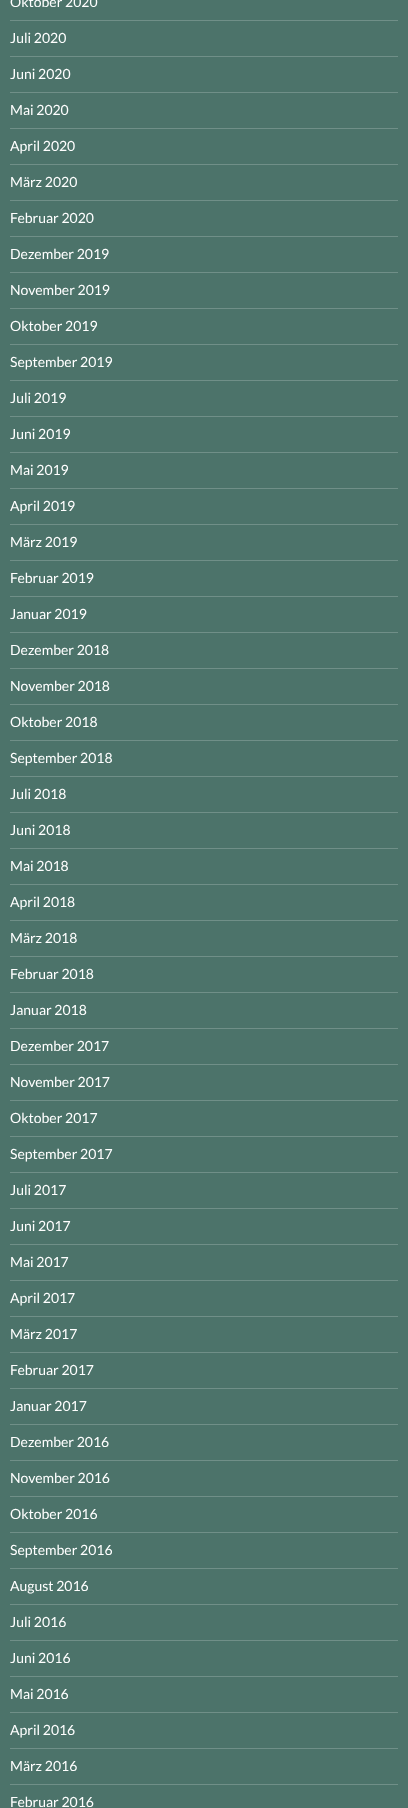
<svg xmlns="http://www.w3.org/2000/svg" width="408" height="1808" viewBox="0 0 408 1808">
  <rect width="100%" height="100%" fill="#4c736a"/>
  <path d="M10 20h388v1H10z" fill="#708f88"/>
  <path d="M10 56h388v1H10z" fill="#708f88"/>
  <path d="M10 92h388v1H10z" fill="#708f88"/>
  <path d="M10 128h388v1H10z" fill="#708f88"/>
  <path d="M10 164h388v1H10z" fill="#708f88"/>
  <path d="M10 200h388v1H10z" fill="#708f88"/>
  <path d="M10 236h388v1H10z" fill="#708f88"/>
  <path d="M10 272h388v1H10z" fill="#708f88"/>
  <path d="M10 308h388v1H10z" fill="#708f88"/>
  <path d="M10 344h388v1H10z" fill="#708f88"/>
  <path d="M10 380h388v1H10z" fill="#708f88"/>
  <path d="M10 416h388v1H10z" fill="#708f88"/>
  <path d="M10 452h388v1H10z" fill="#708f88"/>
  <path d="M10 488h388v1H10z" fill="#708f88"/>
  <path d="M10 524h388v1H10z" fill="#708f88"/>
  <path d="M10 560h388v1H10z" fill="#708f88"/>
  <path d="M10 596h388v1H10z" fill="#708f88"/>
  <path d="M10 632h388v1H10z" fill="#708f88"/>
  <path d="M10 668h388v1H10z" fill="#708f88"/>
  <path d="M10 704h388v1H10z" fill="#708f88"/>
  <path d="M10 740h388v1H10z" fill="#708f88"/>
  <path d="M10 776h388v1H10z" fill="#708f88"/>
  <path d="M10 812h388v1H10z" fill="#708f88"/>
  <path d="M10 848h388v1H10z" fill="#708f88"/>
  <path d="M10 884h388v1H10z" fill="#708f88"/>
  <path d="M10 920h388v1H10z" fill="#708f88"/>
  <path d="M10 956h388v1H10z" fill="#708f88"/>
  <path d="M10 992h388v1H10z" fill="#708f88"/>
  <path d="M10 1028h388v1H10z" fill="#708f88"/>
  <path d="M10 1064h388v1H10z" fill="#708f88"/>
  <path d="M10 1100h388v1H10z" fill="#708f88"/>
  <path d="M10 1136h388v1H10z" fill="#708f88"/>
  <path d="M10 1172h388v1H10z" fill="#708f88"/>
  <path d="M10 1208h388v1H10z" fill="#708f88"/>
  <path d="M10 1244h388v1H10z" fill="#708f88"/>
  <path d="M10 1280h388v1H10z" fill="#708f88"/>
  <path d="M10 1316h388v1H10z" fill="#708f88"/>
  <path d="M10 1352h388v1H10z" fill="#708f88"/>
  <path d="M10 1388h388v1H10z" fill="#708f88"/>
  <path d="M10 1424h388v1H10z" fill="#708f88"/>
  <path d="M10 1460h388v1H10z" fill="#708f88"/>
  <path d="M10 1496h388v1H10z" fill="#708f88"/>
  <path d="M10 1532h388v1H10z" fill="#708f88"/>
  <path d="M10 1568h388v1H10z" fill="#708f88"/>
  <path d="M10 1604h388v1H10z" fill="#708f88"/>
  <path d="M10 1640h388v1H10z" fill="#708f88"/>
  <path d="M10 1676h388v1H10z" fill="#708f88"/>
  <path d="M10 1712h388v1H10z" fill="#708f88"/>
  <path d="M10 1748h388v1H10z" fill="#708f88"/>
  <path d="M10 1784h388v1H10z" fill="#708f88"/>
  <g font-family="Lato" font-size="14" fill="#fff">
    <text x="10" y="7">Oktober 2020</text>
    <text x="10" y="43">Juli 2020</text>
    <text x="10" y="79">Juni 2020</text>
    <text x="10" y="115">Mai 2020</text>
    <text x="10" y="151">April 2020</text>
    <text x="10" y="187">März 2020</text>
    <text x="10" y="223">Februar 2020</text>
    <text x="10" y="259">Dezember 2019</text>
    <text x="10" y="295">November 2019</text>
    <text x="10" y="331">Oktober 2019</text>
    <text x="10" y="367">September 2019</text>
    <text x="10" y="403">Juli 2019</text>
    <text x="10" y="439">Juni 2019</text>
    <text x="10" y="475">Mai 2019</text>
    <text x="10" y="511">April 2019</text>
    <text x="10" y="547">März 2019</text>
    <text x="10" y="583">Februar 2019</text>
    <text x="10" y="619">Januar 2019</text>
    <text x="10" y="655">Dezember 2018</text>
    <text x="10" y="691">November 2018</text>
    <text x="10" y="727">Oktober 2018</text>
    <text x="10" y="763">September 2018</text>
    <text x="10" y="799">Juli 2018</text>
    <text x="10" y="835">Juni 2018</text>
    <text x="10" y="871">Mai 2018</text>
    <text x="10" y="907">April 2018</text>
    <text x="10" y="943">März 2018</text>
    <text x="10" y="979">Februar 2018</text>
    <text x="10" y="1015">Januar 2018</text>
    <text x="10" y="1051">Dezember 2017</text>
    <text x="10" y="1087">November 2017</text>
    <text x="10" y="1123">Oktober 2017</text>
    <text x="10" y="1159">September 2017</text>
    <text x="10" y="1195">Juli 2017</text>
    <text x="10" y="1231">Juni 2017</text>
    <text x="10" y="1267">Mai 2017</text>
    <text x="10" y="1303">April 2017</text>
    <text x="10" y="1339">März 2017</text>
    <text x="10" y="1375">Februar 2017</text>
    <text x="10" y="1411">Januar 2017</text>
    <text x="10" y="1447">Dezember 2016</text>
    <text x="10" y="1483">November 2016</text>
    <text x="10" y="1519">Oktober 2016</text>
    <text x="10" y="1555">September 2016</text>
    <text x="10" y="1591">August 2016</text>
    <text x="10" y="1627">Juli 2016</text>
    <text x="10" y="1663">Juni 2016</text>
    <text x="10" y="1699">Mai 2016</text>
    <text x="10" y="1735">April 2016</text>
    <text x="10" y="1771">März 2016</text>
    <text x="10" y="1807">Februar 2016</text>
  </g>
</svg>
